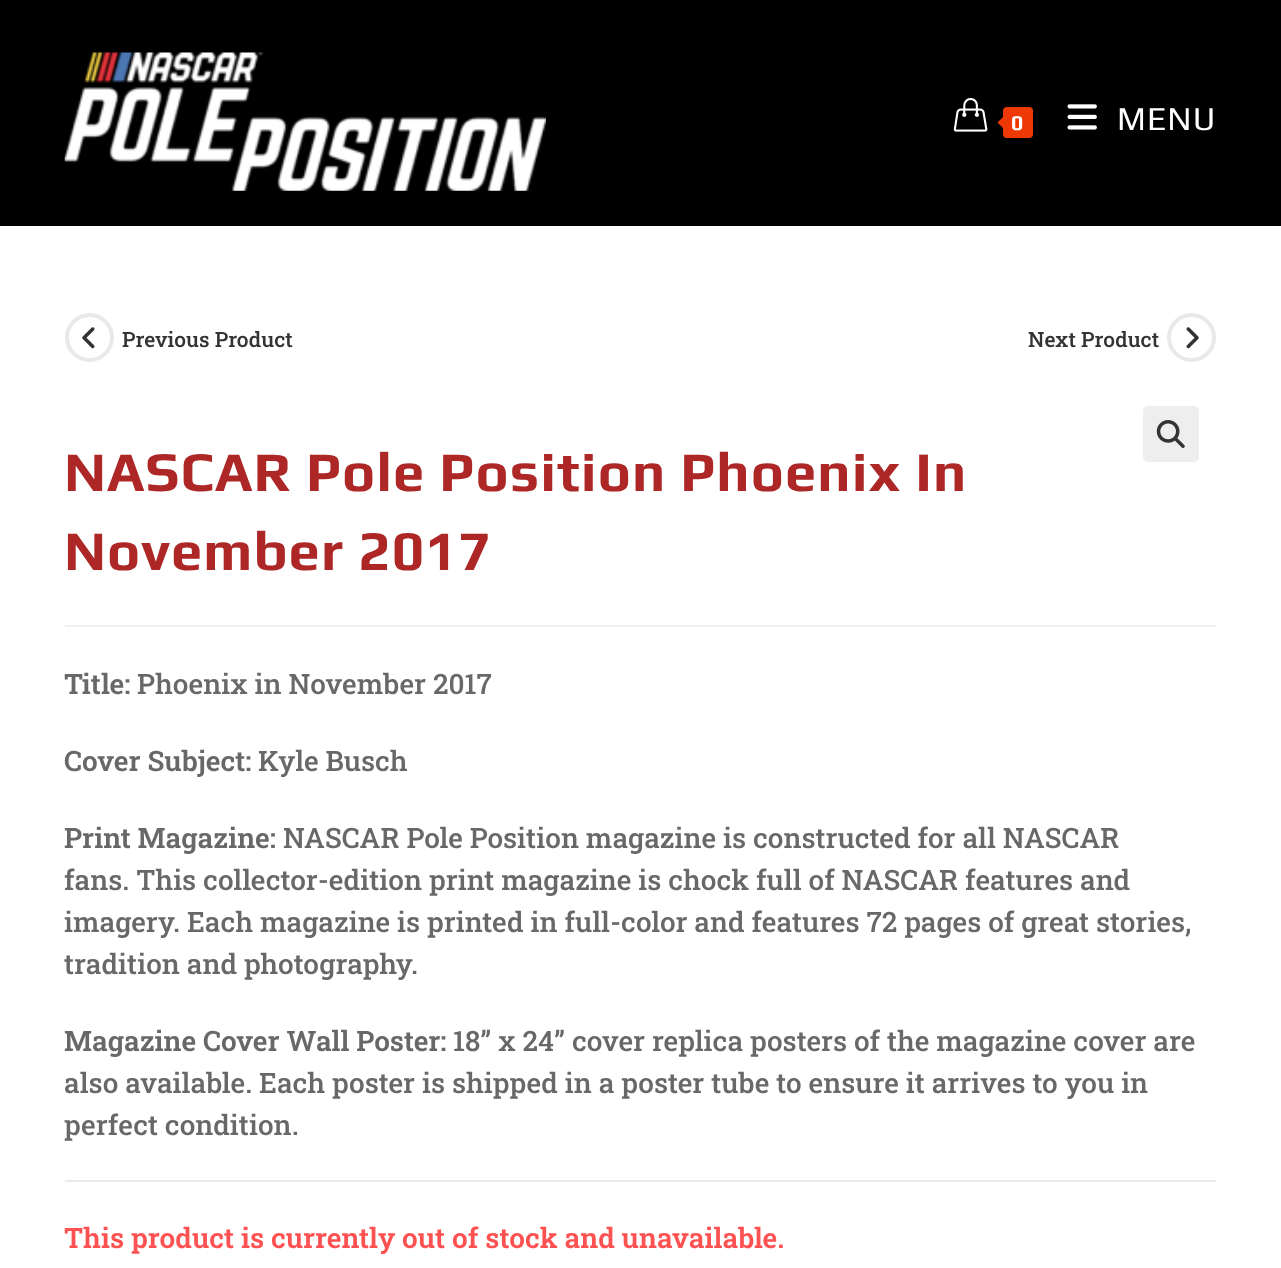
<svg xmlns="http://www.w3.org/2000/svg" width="1281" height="1268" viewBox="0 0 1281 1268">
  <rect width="100%" height="100%" fill="#fff"/>
  <path d="M0 0h1281v226H0z" fill="#000"/>
  <image x="64" y="52" width="482" height="139" href="img/1.png"/>
  <image x="953" y="98" width="35" height="34" href="img/2.png"/>
  <rect x="1003" y="107" width="30" height="31" rx="4" fill="#ee3906"/>
  <path d="M1006 114V131L997.5 122.5Z" fill="#ee3906"/>
  <image x="1067" y="104" width="30" height="26" href="img/3.png"/>
  <circle cx="89.5" cy="337.5" r="22.5" fill="none" stroke="#e9e9e9" stroke-width="4"/>
  <image x="82" y="327" width="13" height="22" href="img/4.png"/>
  <circle cx="1191.5" cy="337.5" r="22.5" fill="none" stroke="#e9e9e9" stroke-width="4"/>
  <image x="1186" y="327" width="13" height="22" href="img/5.png"/>
  <rect x="1143" y="406" width="56" height="56" rx="5" fill="#eee"/>
  <image x="1156" y="420" width="29" height="28" href="img/6.png"/>
  <path d="M65 625h1151v2H65z" fill="#f1f1f1"/>
  <path d="M65 1180h1151v2H65z" fill="#eaeaea"/>
  <text x="1011" y="130" font-family="Play" font-size="21" font-weight="bold" letter-spacing="1.05" fill="#fff">0</text>
  <text x="1117" y="130" font-family="Play" font-size="33.5" letter-spacing="1.05" fill="#fff">MENU</text>
  <g font-family="Roboto Slab" font-size="21" font-weight="500" fill="#333">
    <text x="122" y="347">Previous Product</text>
    <text x="1028" y="347">Next Product</text>
  </g>
  <g font-family="Play" font-size="56" font-weight="bold" letter-spacing="1.05" fill="#ad2727">
    <text x="64" y="491">NASCAR Pole Position Phoenix In</text>
    <text x="64" y="570">November 2017</text>
  </g>
  <text x="64" y="694" font-family="Roboto Slab" font-size="28" font-weight="600" fill="#686868">Title:</text>
  <text x="137" y="694" font-family="Roboto Slab" font-size="28" font-weight="500" fill="#686868">Phoenix in November 2017</text>
  <text x="64" y="771" font-family="Roboto Slab" font-size="28" font-weight="600" fill="#686868">Cover Subject:</text>
  <text x="258" y="771" font-family="Roboto Slab" font-size="28" font-weight="500" fill="#686868">Kyle Busch</text>
  <text x="64" y="848" font-family="Roboto Slab" font-size="28" font-weight="600" fill="#686868">Print Magazine:</text>
  <g font-family="Roboto Slab" font-size="28" font-weight="500" fill="#686868">
    <text x="283" y="848">NASCAR Pole Position magazine is constructed for all NASCAR</text>
    <text x="64" y="890">fans. This collector-edition print magazine is chock full of NASCAR features and</text>
    <text x="64" y="932">imagery. Each magazine is printed in full-color and features 72 pages of great stories,</text>
    <text x="64" y="974">tradition and photography.</text>
  </g>
  <text x="64" y="1051" font-family="Roboto Slab" font-size="28" font-weight="600" fill="#686868">Magazine Cover Wall Poster:</text>
  <g font-family="Roboto Slab" font-size="28" font-weight="500" fill="#686868">
    <text x="453" y="1051">18” x 24” cover replica posters of the magazine cover are</text>
    <text x="64" y="1093">also available. Each poster is shipped in a poster tube to ensure it arrives to you in</text>
    <text x="64" y="1135">perfect condition.</text>
  </g>
  <text x="64" y="1248" font-family="Roboto Slab" font-size="28" font-weight="600" fill="#fe5252">This product is currently out of stock and unavailable.</text>
</svg>
